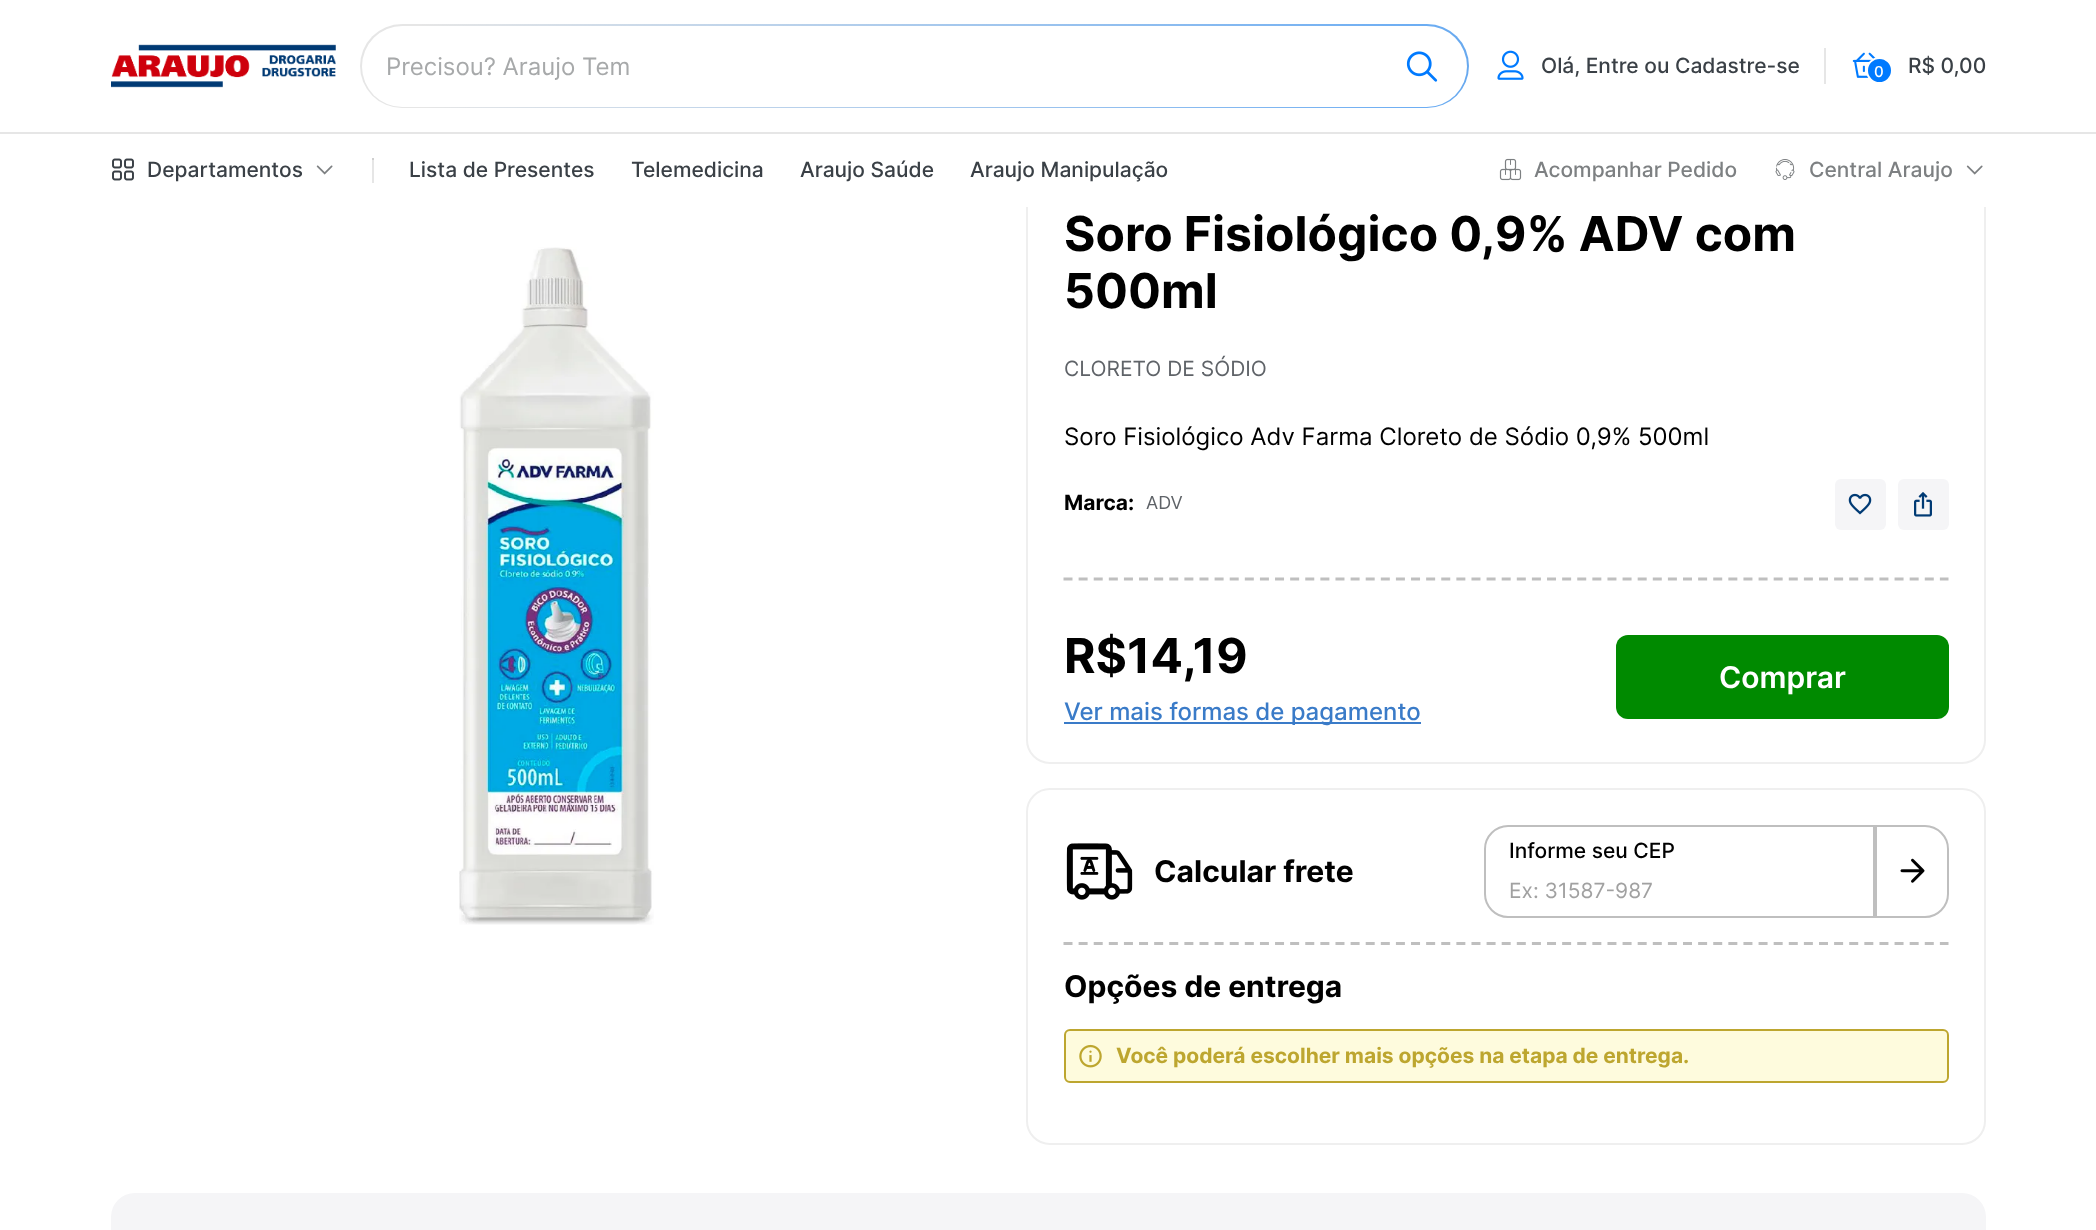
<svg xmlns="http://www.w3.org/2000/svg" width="2096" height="1230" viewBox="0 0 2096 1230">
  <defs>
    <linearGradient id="g1" gradientUnits="userSpaceOnUse" x1="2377" y1="48" x2="360" y2="73"><stop offset="0" stop-color="#004380"/><stop offset="0.47" stop-color="#6cadf3"/><stop offset="0.97" stop-color="#e6e6e6"/></linearGradient>
  </defs>
  <rect width="100%" height="100%" fill="#fff"/>
  <rect x="1027" y="169" width="958" height="594" rx="23" fill="none" stroke="#efefef" stroke-width="2"/>
  <path d="M1026 168h960v39H1026z" fill="#fff"/>
  <path d="M0 132h2096v2H0z" fill="#e6e6e6"/>
  <image x="111" y="44" width="225" height="44" href="img/1.png"/>
  <rect x="360" y="24" width="1109" height="84" rx="42" fill="url(#g1)"/>
  <rect x="362" y="26" width="1105" height="81" rx="40.5" fill="#fff"/>
  <image x="1406" y="51" width="32" height="31" href="img/2.png"/>
  <path d="M1824 48h2v36H1824z" fill="#e6e6e6"/>
  <image x="1497" y="50" width="27" height="30" href="img/3.png"/>
  <image x="1852" y="52" width="24" height="26" href="img/4.png"/>
  <circle cx="1879.5" cy="70.5" r="12.5" fill="#007aff" stroke="#fff" stroke-width="2"/>
  <image x="112" y="158" width="22" height="23" href="img/5.png"/>
  <image x="316" y="165" width="17" height="10" href="img/6.png"/>
  <path d="M372 158h2v25H372z" fill="#e6e6e6"/>
  <path d="M372 158h2v2H372z" fill="#cfcfcf"/>
  <image x="1499" y="158" width="23" height="23" href="img/7.png"/>
  <image x="1775" y="159" width="20" height="21" href="img/8.png"/>
  <image x="1966" y="165" width="17" height="10" href="img/9.png"/>
  <image x="459" y="247" width="195" height="678" href="img/10.png"/>
  <rect x="1835" y="479" width="51" height="51" rx="6" fill="#f5f5f7"/>
  <image x="1848" y="493" width="24" height="22" href="img/11.png"/>
  <rect x="1898" y="479" width="51" height="51" rx="6" fill="#f5f5f7"/>
  <image x="1914" y="492" width="18" height="25" href="img/12.png"/>
  <path d="M1063.5 579H1948.5" fill="none" stroke="#bfbfbf" stroke-width="3" stroke-dasharray="9 6.11"/>
  <path d="M1064 722h357v2H1064z" fill="#3a7bc8"/>
  <rect x="1616" y="635" width="333" height="84" rx="12" fill="#008a00"/>
  <rect x="1027" y="789" width="958" height="355" rx="23" fill="none" stroke="#efefef" stroke-width="2"/>
  <image x="1066" y="843" width="67" height="57" href="img/13.png"/>
  <path d="M1508 826H1874V917H1508C1495.5 917 1485 906.5 1485 894V849C1485 836.5 1495.5 826 1508 826Z" fill="none" stroke="#bfbfbf" stroke-width="2"/>
  <path d="M1876 826H1925C1937.5 826 1948 836.5 1948 849V894C1948 906.5 1937.5 917 1925 917H1876Z" fill="none" stroke="#bfbfbf" stroke-width="2"/>
  <image x="1900" y="858" width="25" height="25" href="img/14.png"/>
  <path d="M1063.5 943.5H1948.5" fill="none" stroke="#bfbfbf" stroke-width="3" stroke-dasharray="9 6.11"/>
  <rect x="1065" y="1030" width="883" height="52" rx="5" fill="#fefbdd" stroke="#bda62f" stroke-width="2"/>
  <image x="1079" y="1044" width="23" height="24" href="img/15.png"/>
  <rect x="111" y="1193" width="1875" height="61" rx="24" fill="#f5f5f7"/>
  <text x="386" y="75" font-family="Inter" font-size="24" fill="#a7a9aa">Precisou? Araujo Tem</text>
  <text x="1541" y="73" font-family="Inter" font-size="21" font-weight="500" fill="#3a4046">Olá, Entre ou Cadastre-se</text>
  <text x="1874" y="77" font-family="Inter" font-size="15" font-weight="500" fill="#fff">0</text>
  <g font-family="Inter" font-size="21" font-weight="500" fill="#3a4046">
    <text x="1908" y="73">R$ 0,00</text>
    <text x="147" y="177">Departamentos</text>
    <text x="409" y="177">Lista de Presentes</text>
    <text x="631" y="177">Telemedicina</text>
    <text x="800" y="177">Araujo Saúde</text>
    <text x="970" y="177">Araujo Manipulação</text>
  </g>
  <g font-family="Inter" font-size="21" font-weight="500" fill="#7d8082">
    <text x="1534" y="177">Acompanhar Pedido</text>
    <text x="1809" y="177">Central Araujo</text>
  </g>
  <g font-family="Inter" font-size="48" font-weight="bold" fill="#000">
    <text x="1064" y="251">Soro Fisiológico 0,9% ADV com</text>
    <text x="1064" y="308">500ml</text>
  </g>
  <text x="1064" y="376" font-family="Inter" font-size="21" fill="#5f6368">CLORETO DE SÓDIO</text>
  <text x="1064" y="445" font-family="Inter" font-size="24" fill="#000">Soro Fisiológico Adv Farma Cloreto de Sódio 0,9% 500ml</text>
  <text x="1064" y="510" font-family="Inter" font-size="21" font-weight="bold" fill="#000">Marca:</text>
  <text x="1146" y="509" font-family="Inter" font-size="18" fill="#5f6368">ADV</text>
  <text x="1064" y="673" font-family="Inter" font-size="48" font-weight="bold" fill="#000">R$14,19</text>
  <text x="1064" y="720" font-family="Inter" font-size="24" font-weight="500" fill="#3a7bc8">Ver mais formas de pagamento</text>
  <text x="1719" y="688" font-family="Inter" font-size="30" font-weight="600" fill="#fff">Comprar</text>
  <text x="1154" y="882" font-family="Inter" font-size="30" font-weight="bold" fill="#000">Calcular frete</text>
  <text x="1509" y="858" font-family="Inter" font-size="21" font-weight="500" fill="#000">Informe seu CEP</text>
  <text x="1509" y="898" font-family="Inter" font-size="21" fill="#a1a1a1">Ex: 31587-987</text>
  <text x="1064" y="997" font-family="Inter" font-size="30" font-weight="bold" fill="#000">Opções de entrega</text>
  <text x="1116" y="1063" font-family="Inter" font-size="21" font-weight="bold" fill="#bda62f">Você poderá escolher mais opções na etapa de entrega.</text>
</svg>
